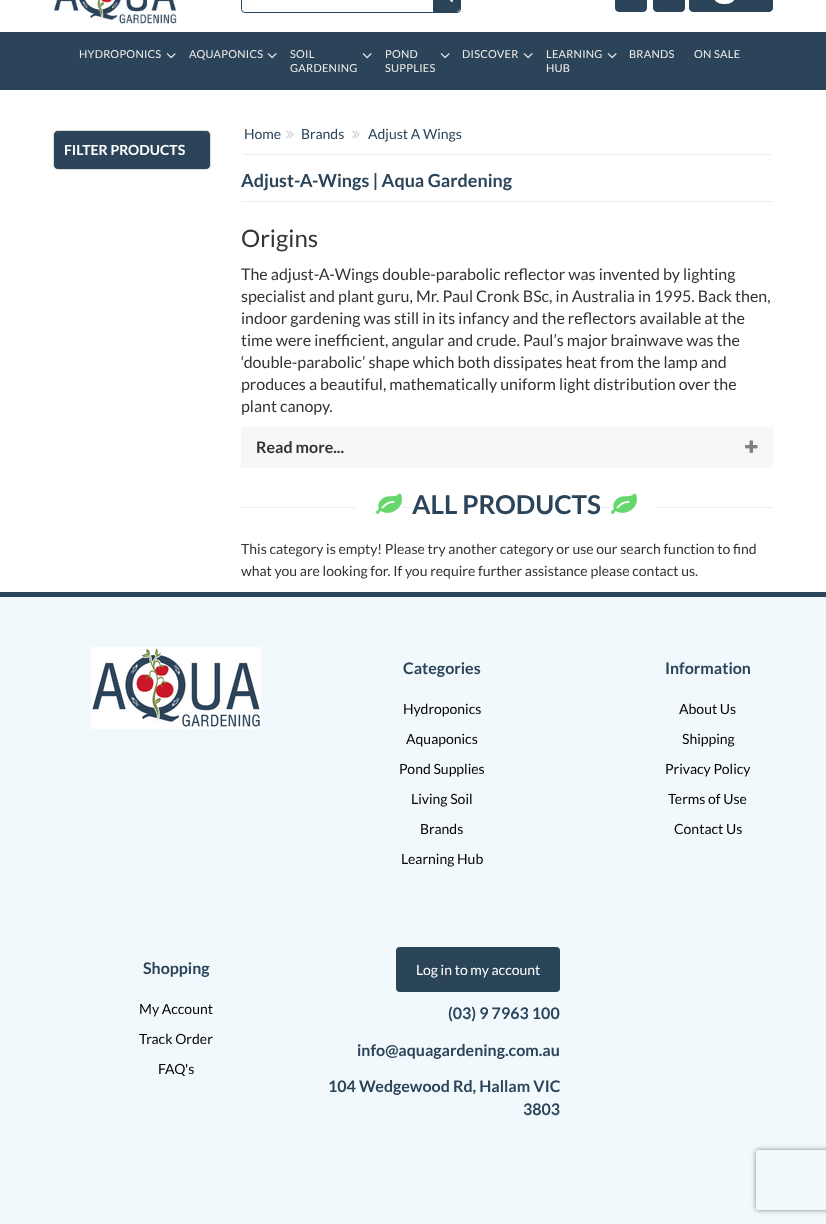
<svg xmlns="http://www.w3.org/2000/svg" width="826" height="1224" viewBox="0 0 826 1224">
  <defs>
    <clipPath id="clip1"><path d="M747 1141H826V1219H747ZM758 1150H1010C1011 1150 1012 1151 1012 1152V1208C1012 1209 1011 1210 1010 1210H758C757 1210 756 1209 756 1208V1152C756 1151 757 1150 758 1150Z" clip-rule="evenodd"/></clipPath>
  </defs>
  <rect width="100%" height="100%" fill="#fff"/>
  <image x="53" y="0" width="124" height="24" href="img/1.png"/>
  <rect x="241.5" y="-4.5" width="219" height="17" rx="3.5" fill="none" stroke="#2b445a"/>
  <path d="M246-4H434V12H246C244 12 242 10 242 8V0C242-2 244-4 246-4Z" fill="#fff"/>
  <path d="M433.5-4.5H456C458-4.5 459.5-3 459.5-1V8C459.5 10 458 11.5 456 11.5H433.5Z" fill="#2b445a" stroke="#2b445a"/>
  <image x="449" y="0" width="4" height="2" href="img/2.png"/>
  <rect x="615.5" y="-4.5" width="31" height="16" rx="3.5" fill="#2b445a" stroke="#2b445a"/>
  <rect x="653.5" y="-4.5" width="31" height="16" rx="3.5" fill="#2b445a" stroke="#2b445a"/>
  <path d="M693-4.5H741.5V11.5H693C691 11.5 689.5 10 689.5 8V-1C689.5-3 691-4.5 693-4.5Z" fill="#2b445a" stroke="#2b445a"/>
  <rect x="714" y="-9" width="21" height="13" rx="9" fill="#fff"/>
  <path d="M741.5-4.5H769C771-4.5 772.5-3 772.5-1V8C772.5 10 771 11.5 769 11.5H741.5Z" fill="#2b445a" stroke="#2b445a"/>
  <path d="M0 32h826v58H0z" fill="#2b445a"/>
  <image x="166" y="53" width="10" height="6" href="img/3.png"/>
  <image x="267" y="53" width="10" height="6" href="img/3.png"/>
  <image x="362" y="53" width="10" height="6" href="img/3.png"/>
  <image x="440" y="53" width="10" height="6" href="img/3.png"/>
  <image x="523" y="53" width="10" height="6" href="img/3.png"/>
  <image x="607" y="53" width="10" height="6" href="img/3.png"/>
  <rect x="53.5" y="130.5" width="157" height="39" rx="4.5" fill="#2b445a" stroke="#ddd"/>
  <path d="M243 154h528v1H243z" fill="#eee"/>
  <image x="286" y="130" width="8" height="9" href="img/4.png"/>
  <image x="352" y="130" width="8" height="9" href="img/4.png"/>
  <path d="M241 201h532v1H241z" fill="#eee"/>
  <path d="M241 427h532v41H241z" fill="#f7f7f7"/>
  <image x="745" y="440" width="13" height="13" href="img/5.png"/>
  <path d="M241 507h532v1H241z" fill="#eee"/>
  <path d="M356 507h46v1H356z" fill="#fff"/>
  <image x="376" y="493" width="26" height="21" href="img/6.png"/>
  <path d="M412 507h189v1H412z" fill="#fff"/>
  <path d="M611 507h46v1H611z" fill="#fff"/>
  <image x="611" y="493" width="26" height="21" href="img/6.png"/>
  <path d="M0 597h826v627H0z" fill="#f2f9fd"/>
  <path d="M0 592h826v5H0z" fill="#2b445a"/>
  <image x="91" y="647" width="170" height="82" href="img/7.png"/>
  <rect x="396" y="947" width="164" height="45" rx="4" fill="#2a4458"/>
  <g clip-path="url(#clip1)">
    <rect x="756" y="1150" width="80" height="60" rx="2" fill="#808080" filter="blur(2.5px)"/>
  </g>
  <g font-family="Lato" font-size="11" letter-spacing="0.25" fill="#f0ece7">
    <text x="79" y="58">HYDROPONICS</text>
    <text x="189" y="58">AQUAPONICS</text>
    <text x="290" y="58">SOIL</text>
    <text x="290" y="72">GARDENING</text>
    <text x="385" y="58">POND</text>
    <text x="385" y="72">SUPPLIES</text>
    <text x="462" y="58">DISCOVER</text>
    <text x="546" y="58">LEARNING</text>
    <text x="546" y="72">HUB</text>
    <text x="629" y="58">BRANDS</text>
    <text x="694" y="58">ON SALE</text>
  </g>
  <text x="64" y="155" font-family="Lato" font-size="14" font-weight="bold" fill="#fff">FILTER PRODUCTS</text>
  <g font-family="Lato" font-size="14" fill="#2b445a">
    <text x="244" y="139">Home</text>
    <text x="301" y="139">Brands</text>
    <text x="368" y="139">Adjust A Wings</text>
  </g>
  <text x="241" y="187" font-family="Lato" font-size="18" font-weight="bold" fill="#2b445a">Adjust-A-Wings | Aqua Gardening</text>
  <text x="241" y="247" font-family="Lato" font-size="24" fill="#333">Origins</text>
  <g font-family="Lato" font-size="16" fill="#333">
    <text x="241" y="280">The adjust-A-Wings double-parabolic reflector was invented by lighting</text>
    <text x="241" y="302">specialist and plant guru, Mr. Paul Cronk BSc, in Australia in 1995. Back then,</text>
    <text x="241" y="324">indoor gardening was still in its infancy and the reflectors available at the</text>
    <text x="241" y="346">time were inefficient, angular and crude. Paul’s major brainwave was the</text>
    <text x="241" y="368">‘double-parabolic’ shape which both dissipates heat from the lamp and</text>
    <text x="241" y="390">produces a beautiful, mathematically uniform light distribution over the</text>
    <text x="241" y="412">plant canopy.</text>
  </g>
  <text x="256" y="453" font-family="Lato" font-size="16" font-weight="bold" fill="#333">Read more...</text>
  <text x="412" y="514" font-family="Lato" font-size="26" font-weight="bold" fill="#2b445a">ALL PRODUCTS</text>
  <g font-family="Lato" font-size="14" fill="#333">
    <text x="241" y="554">This category is empty! Please try another category or use our search function to find</text>
    <text x="241" y="576">what you are looking for. If you require further assistance please contact us.</text>
  </g>
  <text x="403" y="674" font-family="Lato" font-size="16" font-weight="bold" fill="#2b445a">Categories</text>
  <g font-family="Lato" font-size="14" fill="#000">
    <text x="403" y="714">Hydroponics</text>
    <text x="406" y="744">Aquaponics</text>
    <text x="399" y="774">Pond Supplies</text>
    <text x="411" y="804">Living Soil</text>
    <text x="420" y="834">Brands</text>
    <text x="401" y="864">Learning Hub</text>
  </g>
  <text x="665" y="674" font-family="Lato" font-size="16" font-weight="bold" fill="#2b445a">Information</text>
  <g font-family="Lato" font-size="14" fill="#000">
    <text x="679" y="714">About Us</text>
    <text x="682" y="744">Shipping</text>
    <text x="665" y="774">Privacy Policy</text>
    <text x="668" y="804">Terms of Use</text>
    <text x="674" y="834">Contact Us</text>
  </g>
  <text x="143" y="974" font-family="Lato" font-size="16" font-weight="bold" fill="#2b445a">Shopping</text>
  <g font-family="Lato" font-size="14" fill="#000">
    <text x="139" y="1014">My Account</text>
    <text x="139" y="1044">Track Order</text>
    <text x="158" y="1074">FAQ's</text>
  </g>
  <text x="416" y="975" font-family="Lato" font-size="14" fill="#fff">Log in to my account</text>
  <g font-family="Lato" font-size="16" font-weight="bold" fill="#2b445a">
    <text x="448" y="1019">(03) 9 7963 100</text>
    <text x="357" y="1056">info@aquagardening.com.au</text>
    <text x="328" y="1092">104 Wedgewood Rd, Hallam VIC</text>
    <text x="523" y="1115">3803</text>
  </g>
</svg>
